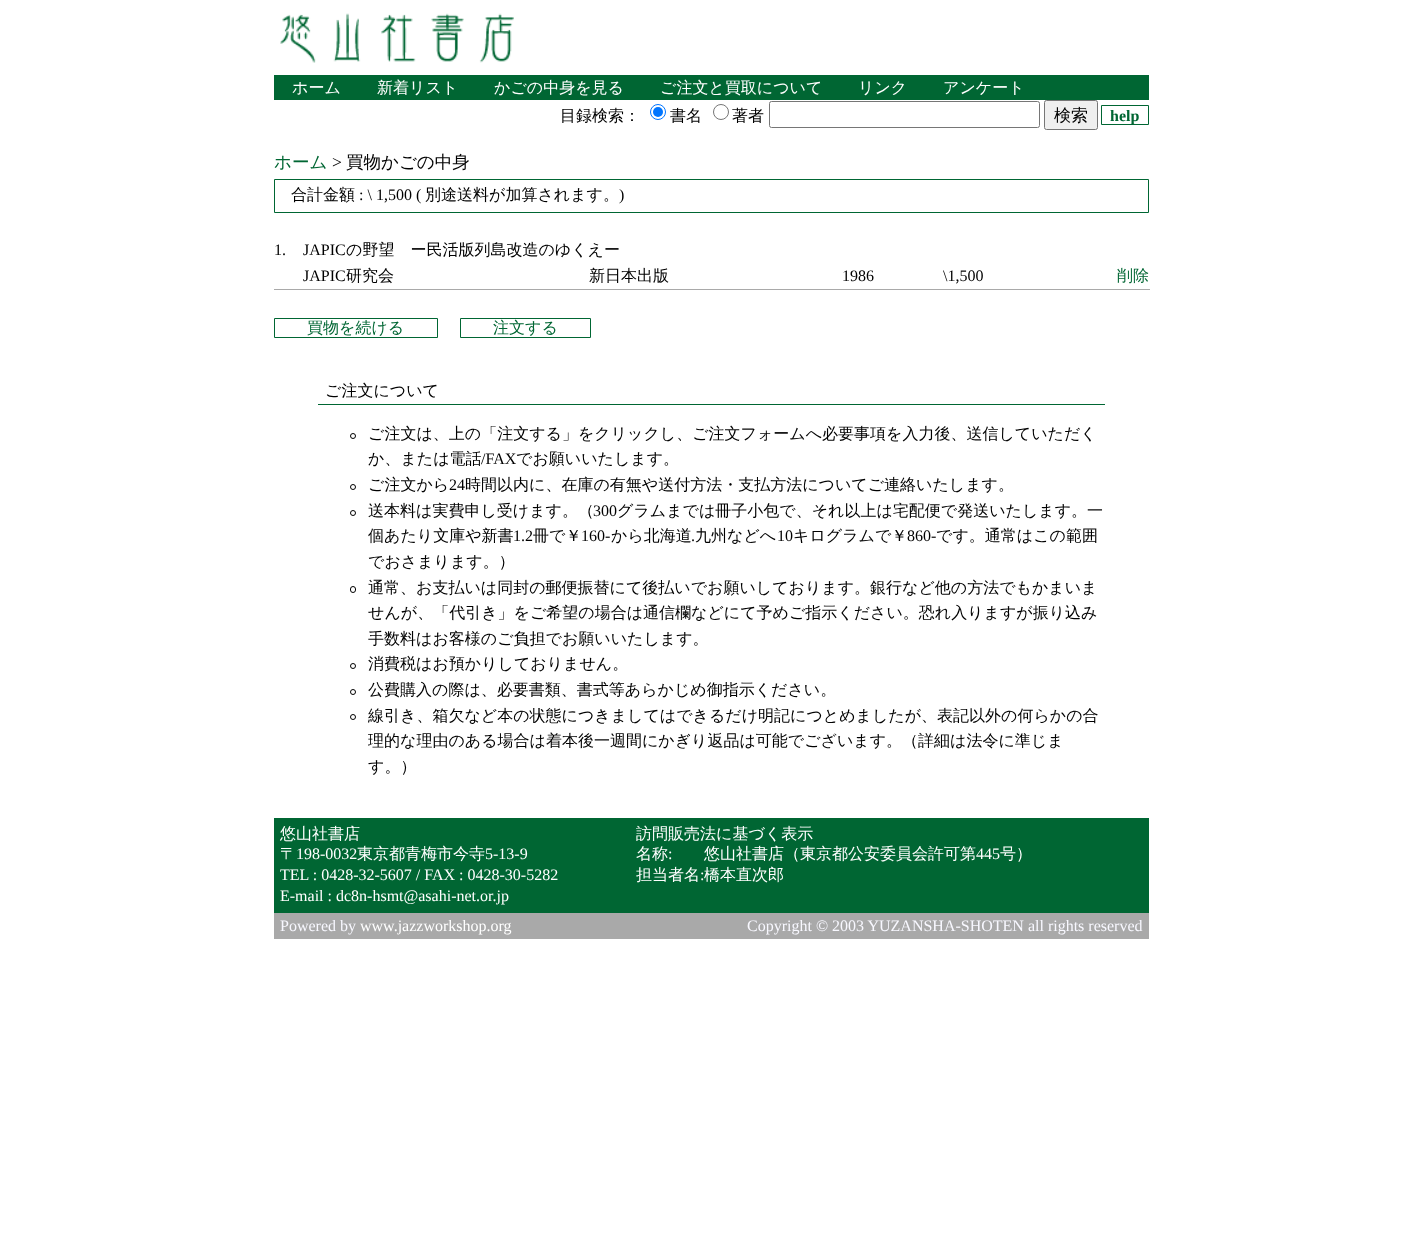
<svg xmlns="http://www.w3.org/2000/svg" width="1422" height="1247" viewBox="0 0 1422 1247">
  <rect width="100%" height="100%" fill="#fff"/>
  <image x="280" y="13" width="234" height="50" href="img/1.png"/>
  <path d="M274 75h875v25H274z" fill="#063"/>
  <circle cx="658" cy="112" r="7.5" fill="none" stroke="#0075ff"/>
  <circle cx="658" cy="112" r="5" fill="#0075ff"/>
  <circle cx="721" cy="112" r="7.5" fill="none" stroke="#767676"/>
  <rect x="769.5" y="101.5" width="270" height="26" rx="2" fill="none" stroke="#767676"/>
  <rect x="1044.5" y="100.5" width="53" height="29" rx="2" fill="#efefef" stroke="#767676"/>
  <path d="M1101.5 105.5h47v19H1101.5z" fill="none" stroke="#063"/>
  <path d="M274.5 179.5h874v33H274.5z" fill="none" stroke="#063"/>
  <path d="M274 289h876v1H274z" fill="#a9a9a9"/>
  <path d="M274.5 318.5h163v19H274.5z" fill="none" stroke="#063"/>
  <path d="M460.5 318.5h130v19H460.5z" fill="none" stroke="#063"/>
  <path d="M318 404h787v1H318z" fill="#063"/>
  <circle cx="353" cy="436" r="2.5" fill="none" stroke="#000"/>
  <circle cx="353" cy="487" r="2.5" fill="none" stroke="#000"/>
  <circle cx="353" cy="513" r="2.5" fill="none" stroke="#000"/>
  <rect x="350.5" y="586.5" width="5" height="6" rx="2.5" fill="none" stroke="#000"/>
  <circle cx="353" cy="666" r="2.5" fill="none" stroke="#000"/>
  <circle cx="353" cy="692" r="2.5" fill="none" stroke="#000"/>
  <circle cx="353" cy="717" r="2.5" fill="none" stroke="#000"/>
  <path d="M274 818h875v95H274z" fill="#063"/>
  <path d="M274 913h875v26H274z" fill="#a9a9a9"/>
  <g font-family="WenQuanYi Zen Hei" font-size="16" font-weight="500" fill="#fff">
    <text x="292" y="93">ホーム</text>
    <text x="377" y="93">新着リスト</text>
    <text x="494" y="93">かごの中身を見る</text>
    <text x="660" y="93">ご注文と買取について</text>
    <text x="858" y="93">リンク</text>
    <text x="943" y="93">アンケート</text>
  </g>
  <g font-family="WenQuanYi Zen Hei" font-size="16" font-weight="500" fill="#000">
    <text x="560" y="121">目録検索：</text>
    <text x="670" y="121">書名</text>
    <text x="732" y="121">著者</text>
  </g>
  <text x="1054" y="121" font-family="WenQuanYi Zen Hei" font-size="17" font-weight="500" fill="#000">検索</text>
  <text x="1110" y="121" font-family="Liberation Serif" font-size="16" font-weight="bold" fill="#063">help</text>
  <text x="274" y="168" font-family="WenQuanYi Zen Hei" font-size="17.5" font-weight="500" fill="#063">ホーム</text>
  <text x="332" y="168" font-family="Liberation Serif" font-size="17.5" fill="#000">&gt;</text>
  <text x="346" y="168" font-family="WenQuanYi Zen Hei" font-size="17.5" font-weight="500" fill="#000">買物かごの中身</text>
  <text x="291" y="200" font-family="WenQuanYi Zen Hei" font-size="16" font-weight="500" fill="#000">合計金額</text>
  <text x="359" y="200" font-family="Liberation Serif" font-size="16" fill="#000">: \ 1,500 (</text>
  <text x="425" y="200" font-family="WenQuanYi Zen Hei" font-size="16" font-weight="500" fill="#000">別途送料が加算されます。</text>
  <g font-family="Liberation Serif" font-size="16" fill="#000">
    <text x="619" y="200">)</text>
    <text x="274" y="255">1.</text>
    <text x="303" y="255">JAPIC</text>
  </g>
  <text x="346" y="255" font-family="WenQuanYi Zen Hei" font-size="16" font-weight="500" fill="#000">の野望　ー民活版列島改造のゆくえー</text>
  <text x="303" y="281" font-family="Liberation Serif" font-size="16" fill="#000">JAPIC</text>
  <g font-family="WenQuanYi Zen Hei" font-size="16" font-weight="500" fill="#000">
    <text x="346" y="281">研究会</text>
    <text x="589" y="281">新日本出版</text>
  </g>
  <g font-family="Liberation Serif" font-size="16" fill="#000">
    <text x="842" y="281">1986</text>
    <text x="943" y="281">\1,500</text>
  </g>
  <g font-family="WenQuanYi Zen Hei" font-size="16" font-weight="500" fill="#063">
    <text x="1117" y="281">削除</text>
    <text x="307" y="333">買物を続ける</text>
    <text x="493" y="333">注文する</text>
  </g>
  <g font-family="WenQuanYi Zen Hei" font-size="16" font-weight="500" fill="#000">
    <text x="325" y="396">ご注文について</text>
    <text x="368" y="439">ご注文は、上の「注文する」をクリックし、ご注文フォームへ必要事項を入力後、送信していただく</text>
    <text x="368" y="464">か、または電話</text>
  </g>
  <text x="481" y="464" font-family="Liberation Serif" font-size="16" fill="#000">/FAX</text>
  <g font-family="WenQuanYi Zen Hei" font-size="16" font-weight="500" fill="#000">
    <text x="516" y="464">でお願いいたします。</text>
    <text x="368" y="490">ご注文から</text>
  </g>
  <text x="449" y="490" font-family="Liberation Serif" font-size="16" fill="#000">24</text>
  <g font-family="WenQuanYi Zen Hei" font-size="16" font-weight="500" fill="#000">
    <text x="465" y="490">時間以内に、在庫の有無や送付方法・支払方法についてご連絡いたします。</text>
    <text x="368" y="516">送本料は実費申し受けます。（</text>
  </g>
  <text x="593" y="516" font-family="Liberation Serif" font-size="16" fill="#000">300</text>
  <g font-family="WenQuanYi Zen Hei" font-size="16" font-weight="500" fill="#000">
    <text x="617" y="516">グラムまでは冊子小包で、それ以上は宅配便で発送いたします。一</text>
    <text x="368" y="541">個あたり文庫や新書</text>
  </g>
  <text x="513" y="541" font-family="Liberation Serif" font-size="16" fill="#000">1.2</text>
  <text x="533" y="541" font-family="WenQuanYi Zen Hei" font-size="16" font-weight="500" fill="#000">冊で￥</text>
  <text x="581" y="541" font-family="Liberation Serif" font-size="16" fill="#000">160-</text>
  <text x="611" y="541" font-family="WenQuanYi Zen Hei" font-size="16" font-weight="500" fill="#000">から北海道</text>
  <text x="691" y="541" font-family="Liberation Serif" font-size="16" fill="#000">.</text>
  <text x="695" y="541" font-family="WenQuanYi Zen Hei" font-size="16" font-weight="500" fill="#000">九州などへ</text>
  <text x="777" y="541" font-family="Liberation Serif" font-size="16" fill="#000">10</text>
  <text x="793" y="541" font-family="WenQuanYi Zen Hei" font-size="16" font-weight="500" fill="#000">キログラムで￥</text>
  <text x="907" y="541" font-family="Liberation Serif" font-size="16" fill="#000">860-</text>
  <g font-family="WenQuanYi Zen Hei" font-size="16" font-weight="500" fill="#000">
    <text x="936" y="541">です。通常はこの範囲</text>
    <text x="368" y="567">でおさまります。）</text>
    <text x="368" y="593">通常、お支払いは同封の郵便振替にて後払いでお願いしております。銀行など他の方法でもかまいま</text>
    <text x="368" y="618">せんが、「代引き」をご希望の場合は通信欄などにて予めご指示ください。恐れ入りますが振り込み</text>
    <text x="368" y="644">手数料はお客様のご負担でお願いいたします。</text>
    <text x="368" y="669">消費税はお預かりしておりません。</text>
    <text x="368" y="695">公費購入の際は、必要書類、書式等あらかじめ御指示ください。</text>
    <text x="368" y="721">線引き、箱欠など本の状態につきましてはできるだけ明記につとめましたが、表記以外の何らかの合</text>
    <text x="368" y="746">理的な理由のある場合は着本後一週間にかぎり返品は可能でございます。（詳細は法令に準じま</text>
    <text x="368" y="772">す。）</text>
  </g>
  <g font-family="WenQuanYi Zen Hei" font-size="16" font-weight="500" fill="#fff">
    <text x="280" y="839">悠山社書店</text>
    <text x="280" y="859">〒</text>
  </g>
  <text x="296" y="859" font-family="Liberation Serif" font-size="16" fill="#fff">198-0032</text>
  <text x="357" y="859" font-family="WenQuanYi Zen Hei" font-size="16" font-weight="500" fill="#fff">東京都青梅市今寺</text>
  <g font-family="Liberation Serif" font-size="16" fill="#fff">
    <text x="485" y="859">5-13-9</text>
    <text x="280" y="880">TEL : 0428-32-5607 / FAX : 0428-30-5282</text>
    <text x="280" y="901">E-mail : dc8n-hsmt@asahi-net.or.jp</text>
  </g>
  <g font-family="WenQuanYi Zen Hei" font-size="16" font-weight="500" fill="#fff">
    <text x="636" y="839">訪問販売法に基づく表示</text>
    <text x="636" y="859">名称</text>
  </g>
  <text x="668" y="859" font-family="Liberation Serif" font-size="16" fill="#fff">:</text>
  <text x="704" y="859" font-family="WenQuanYi Zen Hei" font-size="16" font-weight="500" fill="#fff">悠山社書店（東京都公安委員会許可第</text>
  <text x="976" y="859" font-family="Liberation Serif" font-size="16" fill="#fff">445</text>
  <g font-family="WenQuanYi Zen Hei" font-size="16" font-weight="500" fill="#fff">
    <text x="1000" y="859">号）</text>
    <text x="636" y="880">担当者名</text>
  </g>
  <text x="700" y="880" font-family="Liberation Serif" font-size="16" fill="#fff">:</text>
  <text x="704" y="880" font-family="WenQuanYi Zen Hei" font-size="16" font-weight="500" fill="#fff">橋本直次郎</text>
  <text x="280" y="931" font-family="Liberation Serif" font-size="16" fill="#f8f8ff">Powered by</text>
  <text x="360" y="931" font-family="Liberation Serif" font-size="16" fill="#fff">www.jazzworkshop.org</text>
  <text x="747" y="931" font-family="Liberation Serif" font-size="16" fill="#f8f8ff">Copyright © 2003 YUZANSHA-SHOTEN all rights reserved</text>
</svg>
